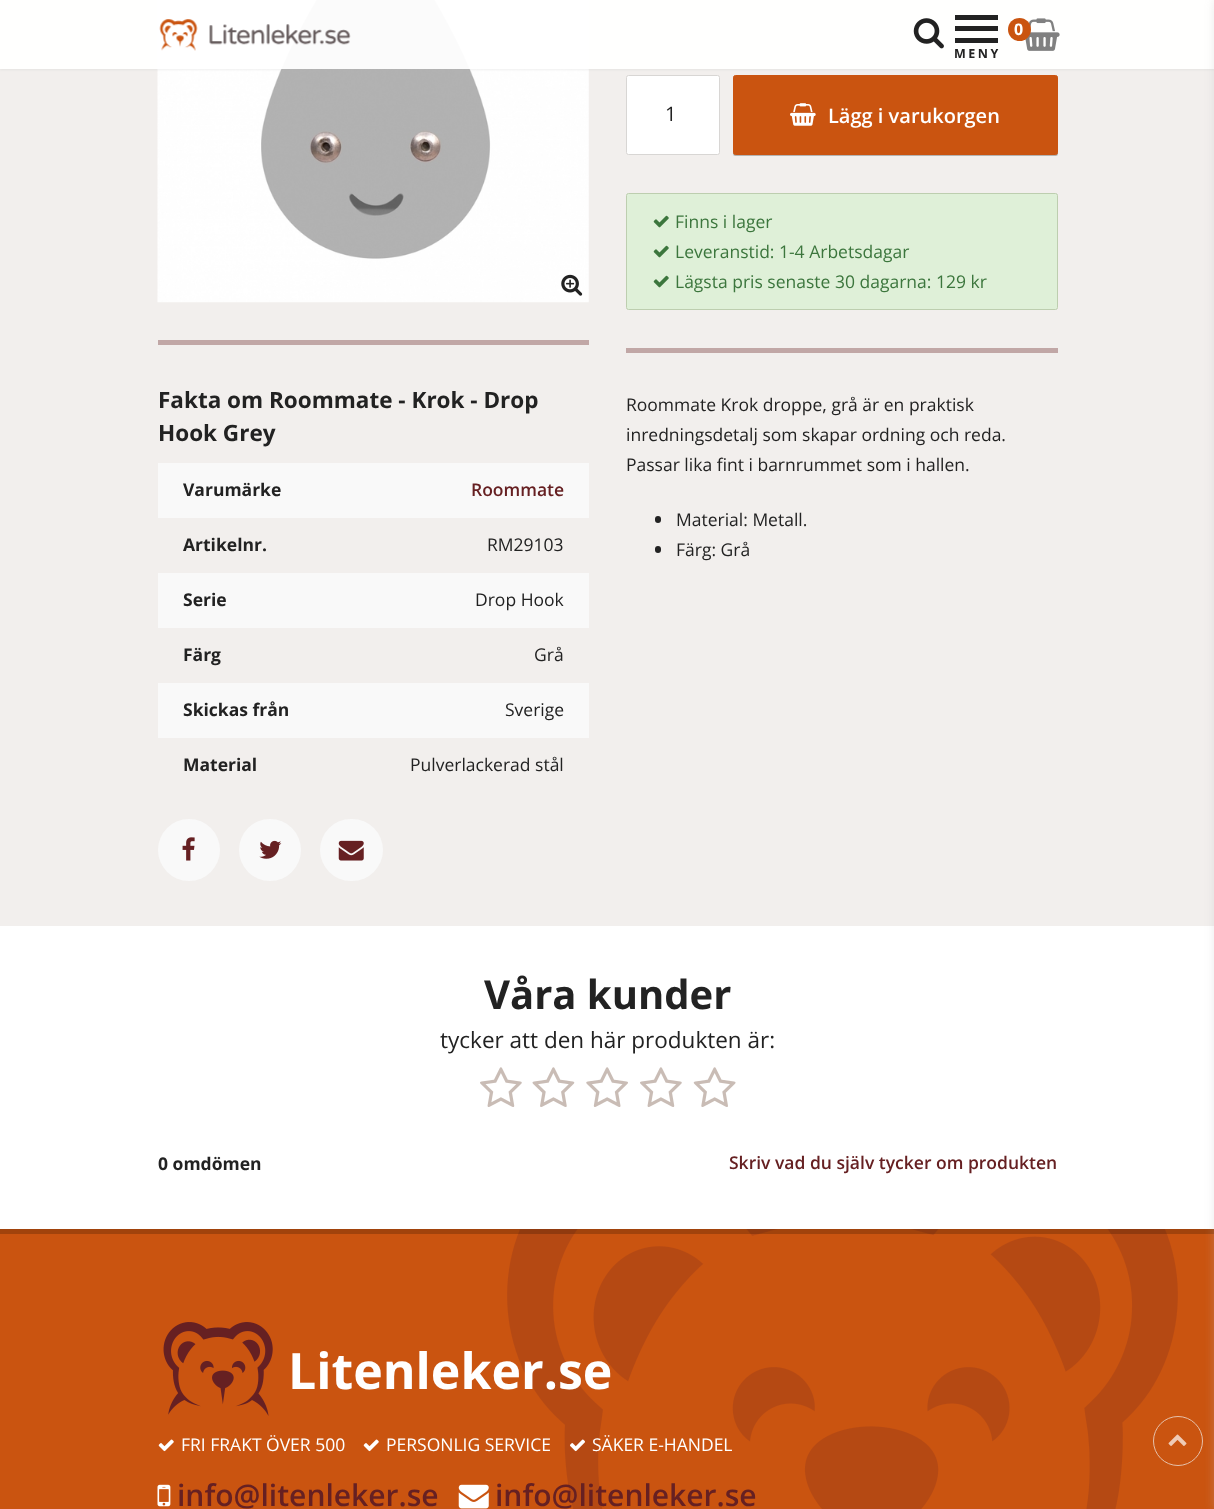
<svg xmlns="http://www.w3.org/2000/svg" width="1214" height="1509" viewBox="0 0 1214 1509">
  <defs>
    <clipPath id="clip1"><path d="M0 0H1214V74H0ZM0 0H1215V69H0Z" clip-rule="evenodd"/></clipPath>
  </defs>
  <rect width="100%" height="100%" fill="#f2efed"/>
  <image x="157" y="0" width="432" height="303" href="img/4.png"/>
  <g clip-path="url(#clip1)">
    <path d="M0 1h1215v69H0z" fill="#b4b4b433" filter="blur(1px)"/>
  </g>
  <path d="M0 0h1214v69H0z" fill="#fffffff2"/>
  <image x="159" y="19" width="192" height="32" href="img/1.png"/>
  <image x="913" y="18" width="31" height="31" href="img/2.png"/>
  <image x="1025" y="18" width="35" height="33" href="img/3.png"/>
  <circle cx="1019.5" cy="29.5" r="11.5" fill="#ca5410"/>
  <path d="M955 26h43v5H955z" fill="#222"/>
  <path d="M955 15h43v5H955z" fill="#222"/>
  <path d="M955 38h43v5H955z" fill="#222"/>
  <image x="561" y="274" width="22" height="22" href="img/5.png"/>
  <path d="M158 340h431v5H158z" fill="#c1a7a6"/>
  <path d="M158 463h431v55H158z" fill="#f9f9f9"/>
  <path d="M158 573h431v55H158z" fill="#f9f9f9"/>
  <path d="M158 683h431v55H158z" fill="#f9f9f9"/>
  <circle cx="189" cy="850" r="31" fill="#f9f9f9"/>
  <image x="182" y="837" width="13" height="24" href="img/6.png"/>
  <circle cx="270" cy="850" r="31" fill="#f9f9f9"/>
  <image x="259" y="840" width="23" height="19" href="img/7.png"/>
  <rect x="320" y="819" width="63" height="62" rx="31" fill="#f9f9f9"/>
  <image x="338" y="840" width="26" height="21" href="img/8.png"/>
  <rect x="626.5" y="75.5" width="93" height="79" rx="2" fill="#fff" stroke="#d8d6d4"/>
  <rect x="733" y="76" width="325" height="80" rx="2.5" fill="#00000040" filter="blur(0.5px)"/>
  <rect x="733.5" y="75.5" width="324" height="79" rx="2" fill="#ca5410" stroke="#ca5410"/>
  <image x="790" y="103" width="26" height="23" href="img/9.png"/>
  <rect x="626.5" y="193.5" width="431" height="116" rx="2" fill="#dff0d8" stroke="#bdceaf"/>
  <image x="653" y="215" width="16" height="13" href="img/10.png"/>
  <image x="653" y="245" width="16" height="13" href="img/10.png"/>
  <image x="653" y="275" width="16" height="13" href="img/10.png"/>
  <path d="M626 348h432v5H626z" fill="#c1a7a6"/>
  <rect x="655" y="516" width="6" height="7" rx="3" fill="#222"/>
  <rect x="655" y="546" width="6" height="7" rx="3" fill="#222"/>
  <path d="M0 926h1214v303H0z" fill="#fff"/>
  <image x="480" y="1067" width="42" height="40" href="img/11.png"/>
  <image x="532" y="1067" width="43" height="40" href="img/12.png"/>
  <image x="586" y="1067" width="42" height="40" href="img/13.png"/>
  <image x="640" y="1067" width="42" height="40" href="img/11.png"/>
  <image x="693" y="1067" width="43" height="40" href="img/14.png"/>
  <path d="M0 1229h1214v280H0z" fill="#ca5410"/>
  <image x="507" y="1229" width="671" height="280" href="img/15.png"/>
  <path d="M0 1229h1214v5H0z" fill="#00000033"/>
  <circle cx="1178" cy="1441" r="24.5" fill="none" stroke="#e6c1ab"/>
  <path d="M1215 0h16v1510H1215z" fill="#bfbfbf5c" filter="blur(5.5px)"/>
  <image x="163" y="1322" width="110" height="94" href="img/16.png"/>
  <image x="158" y="1439" width="16" height="13" href="img/17.png"/>
  <image x="363" y="1439" width="16" height="13" href="img/17.png"/>
  <image x="570" y="1439" width="15" height="13" href="img/18.png"/>
  <image x="157" y="1484" width="14" height="23" href="img/19.png"/>
  <image x="458" y="1484" width="31" height="25" href="img/20.png"/>
  <image x="1168" y="1434" width="19" height="12" href="img/21.png"/>
  <text x="1014" y="35" font-family="Open Sans" font-size="16" font-weight="bold" fill="#fff">0</text>
  <text x="954" y="58" font-family="Open Sans" font-size="12.5" font-weight="bold" letter-spacing="2.5" fill="#222">MENY</text>
  <g font-family="Open Sans" font-size="22.5" font-weight="bold" fill="#222">
    <text x="158" y="408">Fakta om Roommate - Krok - Drop</text>
    <text x="158" y="441">Hook Grey</text>
  </g>
  <text x="183" y="496" font-family="Open Sans" font-size="17.5" font-weight="bold" fill="#222">Varumärke</text>
  <text x="471" y="496" font-family="Open Sans" font-size="17.5" font-weight="600" fill="#662022">Roommate</text>
  <text x="183" y="551" font-family="Open Sans" font-size="17.5" font-weight="bold" fill="#222">Artikelnr.</text>
  <text x="487" y="551" font-family="Open Sans" font-size="17.5" fill="#222">RM29103</text>
  <text x="183" y="606" font-family="Open Sans" font-size="17.5" font-weight="bold" fill="#222">Serie</text>
  <text x="475" y="606" font-family="Open Sans" font-size="17.5" fill="#222">Drop Hook</text>
  <text x="183" y="661" font-family="Open Sans" font-size="17.5" font-weight="bold" fill="#222">Färg</text>
  <text x="534" y="661" font-family="Open Sans" font-size="17.5" fill="#222">Grå</text>
  <text x="183" y="716" font-family="Open Sans" font-size="17.5" font-weight="bold" fill="#222">Skickas från</text>
  <text x="505" y="716" font-family="Open Sans" font-size="17.5" fill="#222">Sverige</text>
  <text x="183" y="771" font-family="Open Sans" font-size="17.5" font-weight="bold" fill="#222">Material</text>
  <text x="410" y="771" font-family="Open Sans" font-size="17.5" fill="#222">Pulverlackerad stål</text>
  <text x="665" y="121" font-family="Open Sans" font-size="20" fill="#222">1</text>
  <text x="828" y="123" font-family="Open Sans" font-size="20" font-weight="600" fill="#fff">Lägg i varukorgen</text>
  <g font-family="Open Sans" font-size="17.5" fill="#3c763d">
    <text x="675" y="228">Finns i lager</text>
    <text x="675" y="258">Leveranstid: 1-4 Arbetsdagar</text>
    <text x="675" y="288">Lägsta pris senaste 30 dagarna: 129 kr</text>
  </g>
  <g font-family="Open Sans" font-size="17.5" fill="#222">
    <text x="626" y="411">Roommate Krok droppe, grå är en praktisk</text>
    <text x="626" y="441">inredningsdetalj som skapar ordning och reda.</text>
    <text x="626" y="471">Passar lika fint i barnrummet som i hallen.</text>
    <text x="676" y="526">Material: Metall.</text>
    <text x="676" y="556">Färg: Grå</text>
  </g>
  <text x="484" y="1009" font-family="Open Sans" font-size="40" font-weight="bold" fill="#222">Våra kunder</text>
  <text x="440" y="1048" font-family="Open Sans" font-size="22.5" fill="#222">tycker att den här produkten är:</text>
  <text x="158" y="1170" font-family="Open Sans" font-size="17.5" font-weight="bold" fill="#222">0 omdömen</text>
  <text x="729" y="1169" font-family="Open Sans" font-size="17.5" font-weight="600" fill="#662022">Skriv vad du själv tycker om produkten</text>
  <text x="288" y="1389" font-family="Open Sans" font-size="50" font-weight="bold" fill="#fff">Litenleker.se</text>
  <g font-family="Open Sans" font-size="17.5" fill="#fff">
    <text x="181" y="1451">FRI FRAKT ÖVER 500</text>
    <text x="386" y="1451">PERSONLIG SERVICE</text>
    <text x="592" y="1451">SÄKER E-HANDEL</text>
  </g>
  <g font-family="Open Sans" font-size="30" font-weight="600" fill="#662022">
    <text x="177" y="1506">info@litenleker.se</text>
    <text x="495" y="1506">info@litenleker.se</text>
  </g>
</svg>
